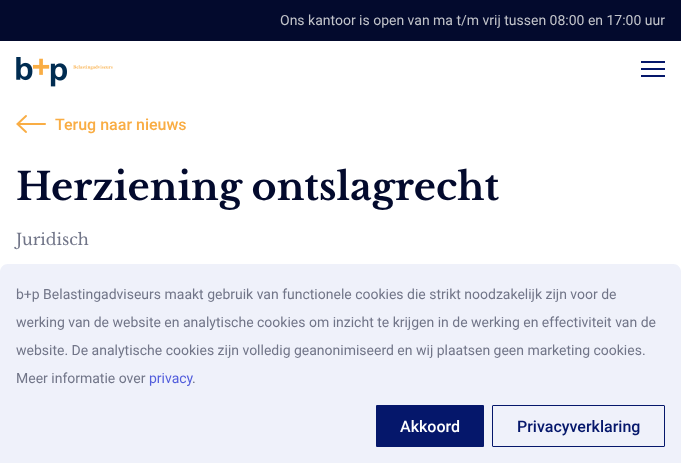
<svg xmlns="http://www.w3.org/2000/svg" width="681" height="463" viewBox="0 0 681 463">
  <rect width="100%" height="100%" fill="#fff"/>
  <path d="M0 0h681v41H0z" fill="#030a2d"/>
  <image x="16" y="57" width="97" height="30" href="img/1.png"/>
  <image x="641" y="61" width="24" height="16" href="img/2.png"/>
  <image x="16" y="115" width="30" height="18" href="img/3.png"/>
  <path d="M8 264H673C677.5 264 681 267.5 681 272V463H0V272C0 267.5 3.5 264 8 264Z" fill="#eff1fa"/>
  <rect x="376" y="405" width="108" height="42" rx="1" fill="#05176b"/>
  <rect x="492.5" y="405.5" width="172" height="41" rx="0.5" fill="none" stroke="#05176b"/>
  <text x="280" y="25" font-family="Roboto" font-size="14" fill="#c3c5cb">Ons kantoor is open van ma t/m vrij tussen 08:00 en 17:00 uur</text>
  <text x="55" y="130" font-family="Roboto" font-size="16" font-weight="500" fill="#f9ad44">Terug naar nieuws</text>
  <text x="16" y="200" font-family="Libre Baskerville" font-size="38" font-weight="bold" fill="#030a2d">Herziening ontslagrecht</text>
  <text x="16" y="245" font-family="Libre Baskerville" font-size="16" fill="#717588">Juridisch</text>
  <g font-family="Roboto" font-size="14" fill="#717588">
    <text x="16" y="299">b+p Belastingadviseurs maakt gebruik van functionele cookies die strikt noodzakelijk zijn voor de</text>
    <text x="16" y="327">werking van de website en analytische cookies om inzicht te krijgen in de werking en effectiviteit van de</text>
    <text x="16" y="355">website. De analytische cookies zijn volledig geanonimiseerd en wij plaatsen geen marketing cookies.</text>
    <text x="16" y="383">Meer informatie over</text>
  </g>
  <text x="149" y="383" font-family="Roboto" font-size="14" fill="#525ddc">privacy</text>
  <text x="192" y="383" font-family="Roboto" font-size="14" fill="#717588">.</text>
  <text x="400" y="432" font-family="Roboto" font-size="16" font-weight="500" fill="#fff">Akkoord</text>
  <text x="517" y="432" font-family="Roboto" font-size="16" font-weight="500" fill="#05176b">Privacyverklaring</text>
</svg>
